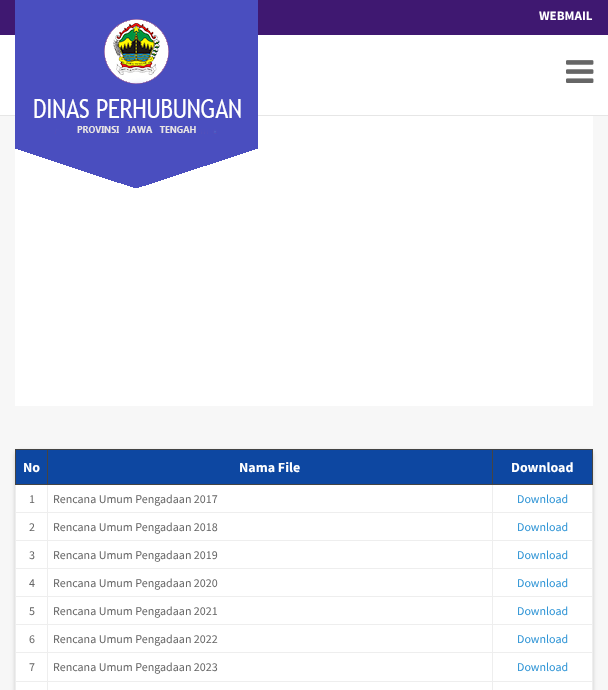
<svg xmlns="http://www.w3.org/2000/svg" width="608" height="690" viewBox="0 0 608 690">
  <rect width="100%" height="100%" fill="#f7f7f7"/>
  <path d="M0 35h608v80H0z" fill="#fff"/>
  <path d="M0 115h608v1H0z" fill="#e6e6e6"/>
  <path d="M0 0h608v35H0z" fill="#3f1871"/>
  <path d="M15 116h578v290H15z" fill="#fff"/>
  <image x="15" y="0" width="243" height="188" href="img/1.png"/>
  <image x="566" y="60" width="28" height="23" href="img/2.png"/>
  <rect x="16" y="452" width="576" height="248" rx="2" fill="#00000042" filter="blur(2.5px)"/>
  <path d="M16 485h576v205H16z" fill="#fff"/>
  <path d="M592 485h1v205H592z" fill="#eee"/>
  <path d="M15 485h1v205H15z" fill="#eee"/>
  <path d="M16 450h31v34H16z" fill="#0d47a1"/>
  <path d="M492 449h101v1H492z" fill="#444"/>
  <path d="M592 449h1v36H592z" fill="#444"/>
  <path d="M492 512h101v1H492z" fill="#eee"/>
  <path d="M492 540h101v1H492z" fill="#eee"/>
  <path d="M492 568h101v1H492z" fill="#eee"/>
  <path d="M492 596h101v1H492z" fill="#eee"/>
  <path d="M492 624h101v1H492z" fill="#eee"/>
  <path d="M492 652h101v1H492z" fill="#eee"/>
  <path d="M492 681h101v1H492z" fill="#eee"/>
  <path d="M492 681h1v9H492z" fill="#eee"/>
  <path d="M47 681h446v1H47z" fill="#eee"/>
  <path d="M492 652h1v30H492z" fill="#eee"/>
  <path d="M47 652h446v1H47z" fill="#eee"/>
  <path d="M492 624h1v29H492z" fill="#eee"/>
  <path d="M47 624h446v1H47z" fill="#eee"/>
  <path d="M492 596h1v29H492z" fill="#eee"/>
  <path d="M47 596h446v1H47z" fill="#eee"/>
  <path d="M492 568h1v29H492z" fill="#eee"/>
  <path d="M47 568h446v1H47z" fill="#eee"/>
  <path d="M492 540h1v29H492z" fill="#eee"/>
  <path d="M47 540h446v1H47z" fill="#eee"/>
  <path d="M492 512h1v29H492z" fill="#eee"/>
  <path d="M47 512h446v1H47z" fill="#eee"/>
  <path d="M492 484h1v29H492z" fill="#eee"/>
  <path d="M492 484h101v1H492z" fill="#444"/>
  <path d="M492 449h1v36H492z" fill="#444"/>
  <path d="M47 449h446v1H47z" fill="#444"/>
  <path d="M47 681h1v9H47z" fill="#eee"/>
  <path d="M15 681h33v1H15z" fill="#eee"/>
  <path d="M47 652h1v30H47z" fill="#eee"/>
  <path d="M15 652h33v1H15z" fill="#eee"/>
  <path d="M47 624h1v29H47z" fill="#eee"/>
  <path d="M15 624h33v1H15z" fill="#eee"/>
  <path d="M47 596h1v29H47z" fill="#eee"/>
  <path d="M15 596h33v1H15z" fill="#eee"/>
  <path d="M47 568h1v29H47z" fill="#eee"/>
  <path d="M15 568h33v1H15z" fill="#eee"/>
  <path d="M47 540h1v29H47z" fill="#eee"/>
  <path d="M15 540h33v1H15z" fill="#eee"/>
  <path d="M47 512h1v29H47z" fill="#eee"/>
  <path d="M15 512h33v1H15z" fill="#eee"/>
  <path d="M47 484h1v29H47z" fill="#eee"/>
  <path d="M47 484h446v1H47z" fill="#444"/>
  <path d="M47 449h1v36H47z" fill="#444"/>
  <path d="M15 449h33v1H15z" fill="#444"/>
  <path d="M15 484h33v1H15z" fill="#444"/>
  <path d="M15 449h1v36H15z" fill="#444"/>
  <path d="M48 450h444v34H48z" fill="#0d47a1"/>
  <path d="M493 450h99v34H493z" fill="#0d47a1"/>
  <text x="539" y="20" font-family="Source Sans Pro" font-size="13" font-weight="bold" fill="#fff">WEBMAIL</text>
  <g font-family="Source Sans Pro" font-size="14" font-weight="bold" fill="#fff">
    <text x="23" y="472">No</text>
    <text x="239" y="472">Nama File</text>
    <text x="511" y="472">Download</text>
  </g>
  <g font-family="Source Sans Pro" font-size="12" fill="#666">
    <text x="29" y="503">1</text>
    <text x="53" y="503">Rencana Umum Pengadaan 2017</text>
  </g>
  <text x="517" y="503" font-family="Source Sans Pro" font-size="12" fill="#2c93d5">Download</text>
  <g font-family="Source Sans Pro" font-size="12" fill="#666">
    <text x="29" y="531">2</text>
    <text x="53" y="531">Rencana Umum Pengadaan 2018</text>
  </g>
  <text x="517" y="531" font-family="Source Sans Pro" font-size="12" fill="#2c93d5">Download</text>
  <g font-family="Source Sans Pro" font-size="12" fill="#666">
    <text x="29" y="559">3</text>
    <text x="53" y="559">Rencana Umum Pengadaan 2019</text>
  </g>
  <text x="517" y="559" font-family="Source Sans Pro" font-size="12" fill="#2c93d5">Download</text>
  <g font-family="Source Sans Pro" font-size="12" fill="#666">
    <text x="29" y="587">4</text>
    <text x="53" y="587">Rencana Umum Pengadaan 2020</text>
  </g>
  <text x="517" y="587" font-family="Source Sans Pro" font-size="12" fill="#2c93d5">Download</text>
  <g font-family="Source Sans Pro" font-size="12" fill="#666">
    <text x="29" y="615">5</text>
    <text x="53" y="615">Rencana Umum Pengadaan 2021</text>
  </g>
  <text x="517" y="615" font-family="Source Sans Pro" font-size="12" fill="#2c93d5">Download</text>
  <g font-family="Source Sans Pro" font-size="12" fill="#666">
    <text x="29" y="643">6</text>
    <text x="53" y="643">Rencana Umum Pengadaan 2022</text>
  </g>
  <text x="517" y="643" font-family="Source Sans Pro" font-size="12" fill="#2c93d5">Download</text>
  <g font-family="Source Sans Pro" font-size="12" fill="#666">
    <text x="29" y="671">7</text>
    <text x="53" y="671">Rencana Umum Pengadaan 2023</text>
  </g>
  <text x="517" y="671" font-family="Source Sans Pro" font-size="12" fill="#2c93d5">Download</text>
</svg>
